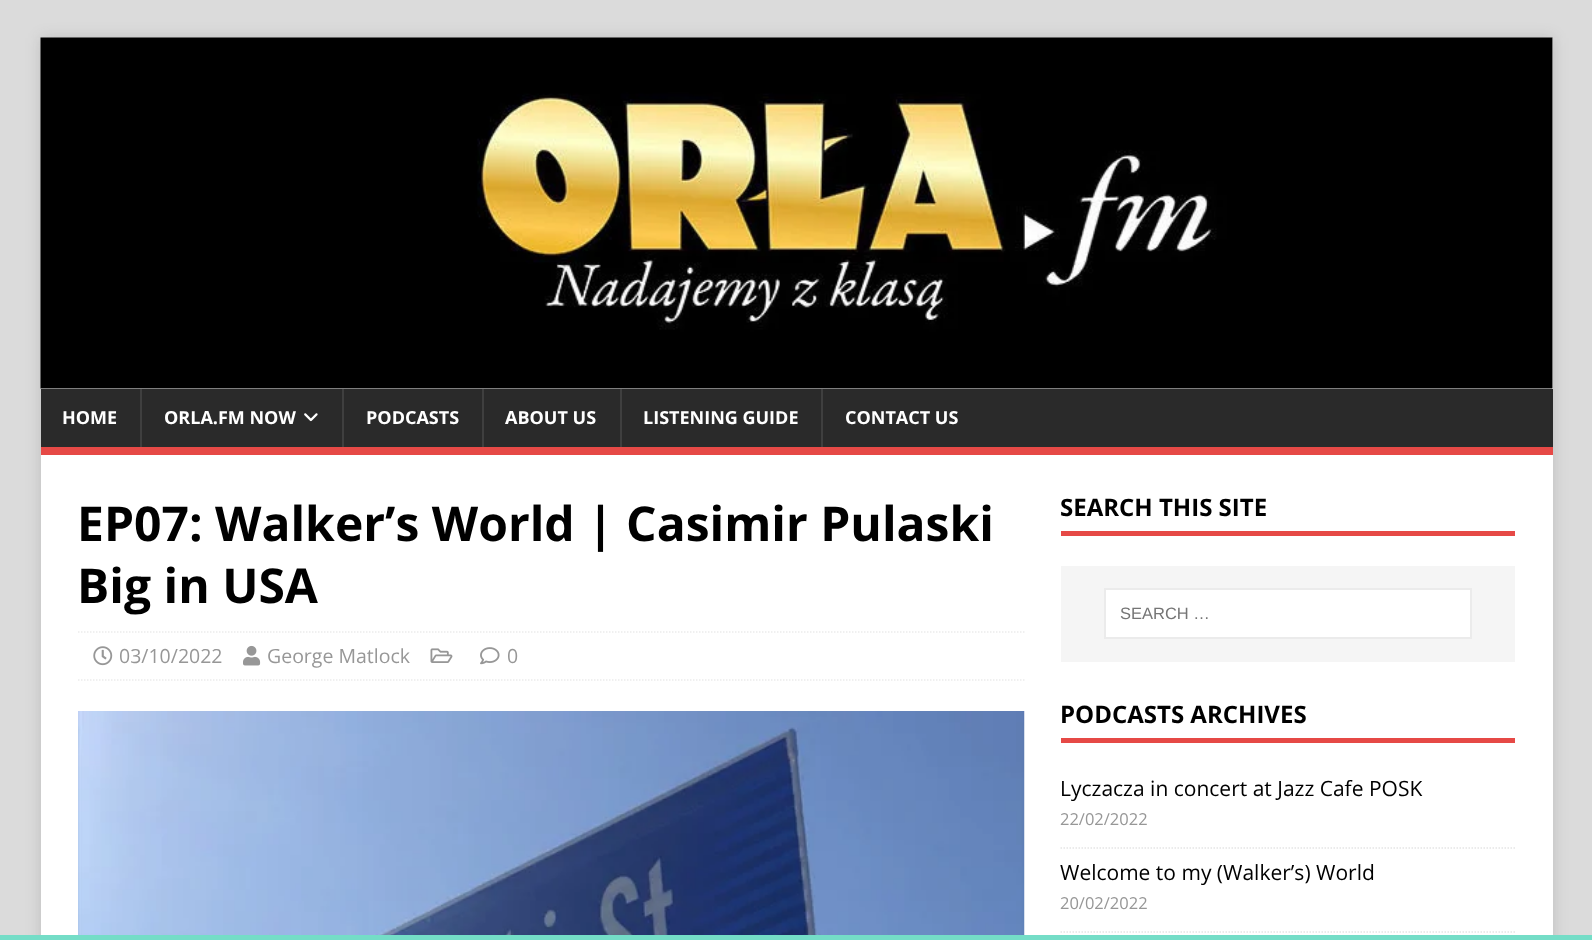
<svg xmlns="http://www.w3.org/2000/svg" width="1592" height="940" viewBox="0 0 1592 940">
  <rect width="100%" height="100%" fill="#dbdbdb"/>
  <path d="M41 38h1512v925H41z" fill="#3232322b" filter="blur(7.5px)"/>
  <path d="M41 38h1512v351H41z" fill="#fff"/>
  <image x="40" y="37" width="1513" height="352" href="img/1.png"/>
  <path d="M41 389h1512v58H41z" fill="#2a2a2a"/>
  <path d="M41 447h1512v8H41z" fill="#e64946"/>
  <path d="M140 389h2v58H140z" fill="#3f3f3f"/>
  <image x="304" y="413" width="14" height="9" href="img/2.png"/>
  <path d="M342 389h2v58H342z" fill="#3f3f3f"/>
  <path d="M482 389h2v58H482z" fill="#3f3f3f"/>
  <path d="M620 389h2v58H620z" fill="#3f3f3f"/>
  <path d="M821 389h2v58H821z" fill="#3f3f3f"/>
  <path d="M41 455h1512v480H41z" fill="#fff"/>
  <path d="M78 632H1024.5" fill="none" stroke="#ebebeb" stroke-width="1.5" stroke-dasharray="1.5 1.5"/>
  <path d="M78 680H1024.5" fill="none" stroke="#ebebeb" stroke-width="1.5" stroke-dasharray="1.5 1.5"/>
  <image x="93" y="646" width="20" height="20" href="img/3.png"/>
  <image x="243" y="645" width="18" height="21" href="img/4.png"/>
  <image x="430" y="648" width="23" height="15" href="img/5.png"/>
  <image x="480" y="647" width="20" height="18" href="img/6.png"/>
  <image x="78" y="711" width="947" height="224" href="img/7.png"/>
  <path d="M1061 531h454v5H1061z" fill="#e64946"/>
  <path d="M1061 566h454v96H1061z" fill="#f5f5f5"/>
  <path d="M1105 589h366v49H1105z" fill="#fff" stroke="#ebebeb" stroke-width="2"/>
  <path d="M1061 738h454v5H1061z" fill="#e64946"/>
  <path d="M1060.5 848H1515" fill="none" stroke="#e5e5e5" stroke-width="1.5" stroke-dasharray="1.5 1.5"/>
  <path d="M1060.5 932H1515" fill="none" stroke="#e5e5e5" stroke-width="1.5" stroke-dasharray="1.5 1.5"/>
  <path d="M0 935h1592v5H0z" fill="#74ddc7"/>
  <g font-family="Open Sans" font-size="18" font-weight="bold" fill="#fff">
    <text x="62" y="424">HOME</text>
    <text x="164" y="424">ORLA.FM NOW</text>
    <text x="366" y="424">PODCASTS</text>
    <text x="505" y="424">ABOUT US</text>
    <text x="643" y="424">LISTENING GUIDE</text>
    <text x="845" y="424">CONTACT US</text>
  </g>
  <g font-family="Open Sans" font-size="48" font-weight="bold" fill="#000">
    <text x="77" y="541">EP07: Walker’s World | Casimir Pulaski</text>
    <text x="77" y="603">Big in USA</text>
  </g>
  <g font-family="Open Sans" font-size="19.5" fill="#979797">
    <text x="119" y="663">03/10/2022</text>
    <text x="267" y="663">George Matlock</text>
    <text x="507" y="663">0</text>
  </g>
  <text x="1060" y="516" font-family="Open Sans" font-size="24" font-weight="bold" fill="#000">SEARCH THIS SITE</text>
  <text x="1120" y="619" font-family="Liberation Sans" font-size="16.5" fill="#757575">SEARCH …</text>
  <text x="1060" y="723" font-family="Open Sans" font-size="24" font-weight="bold" fill="#000">PODCASTS ARCHIVES</text>
  <text x="1060" y="796" font-family="Open Sans" font-size="21" fill="#000">Lyczacza in concert at Jazz Cafe POSK</text>
  <text x="1060" y="825" font-family="Open Sans" font-size="16.5" fill="#979797">22/02/2022</text>
  <text x="1060" y="880" font-family="Open Sans" font-size="21" fill="#000">Welcome to my (Walker’s) World</text>
  <text x="1060" y="909" font-family="Open Sans" font-size="16.5" fill="#979797">20/02/2022</text>
</svg>
